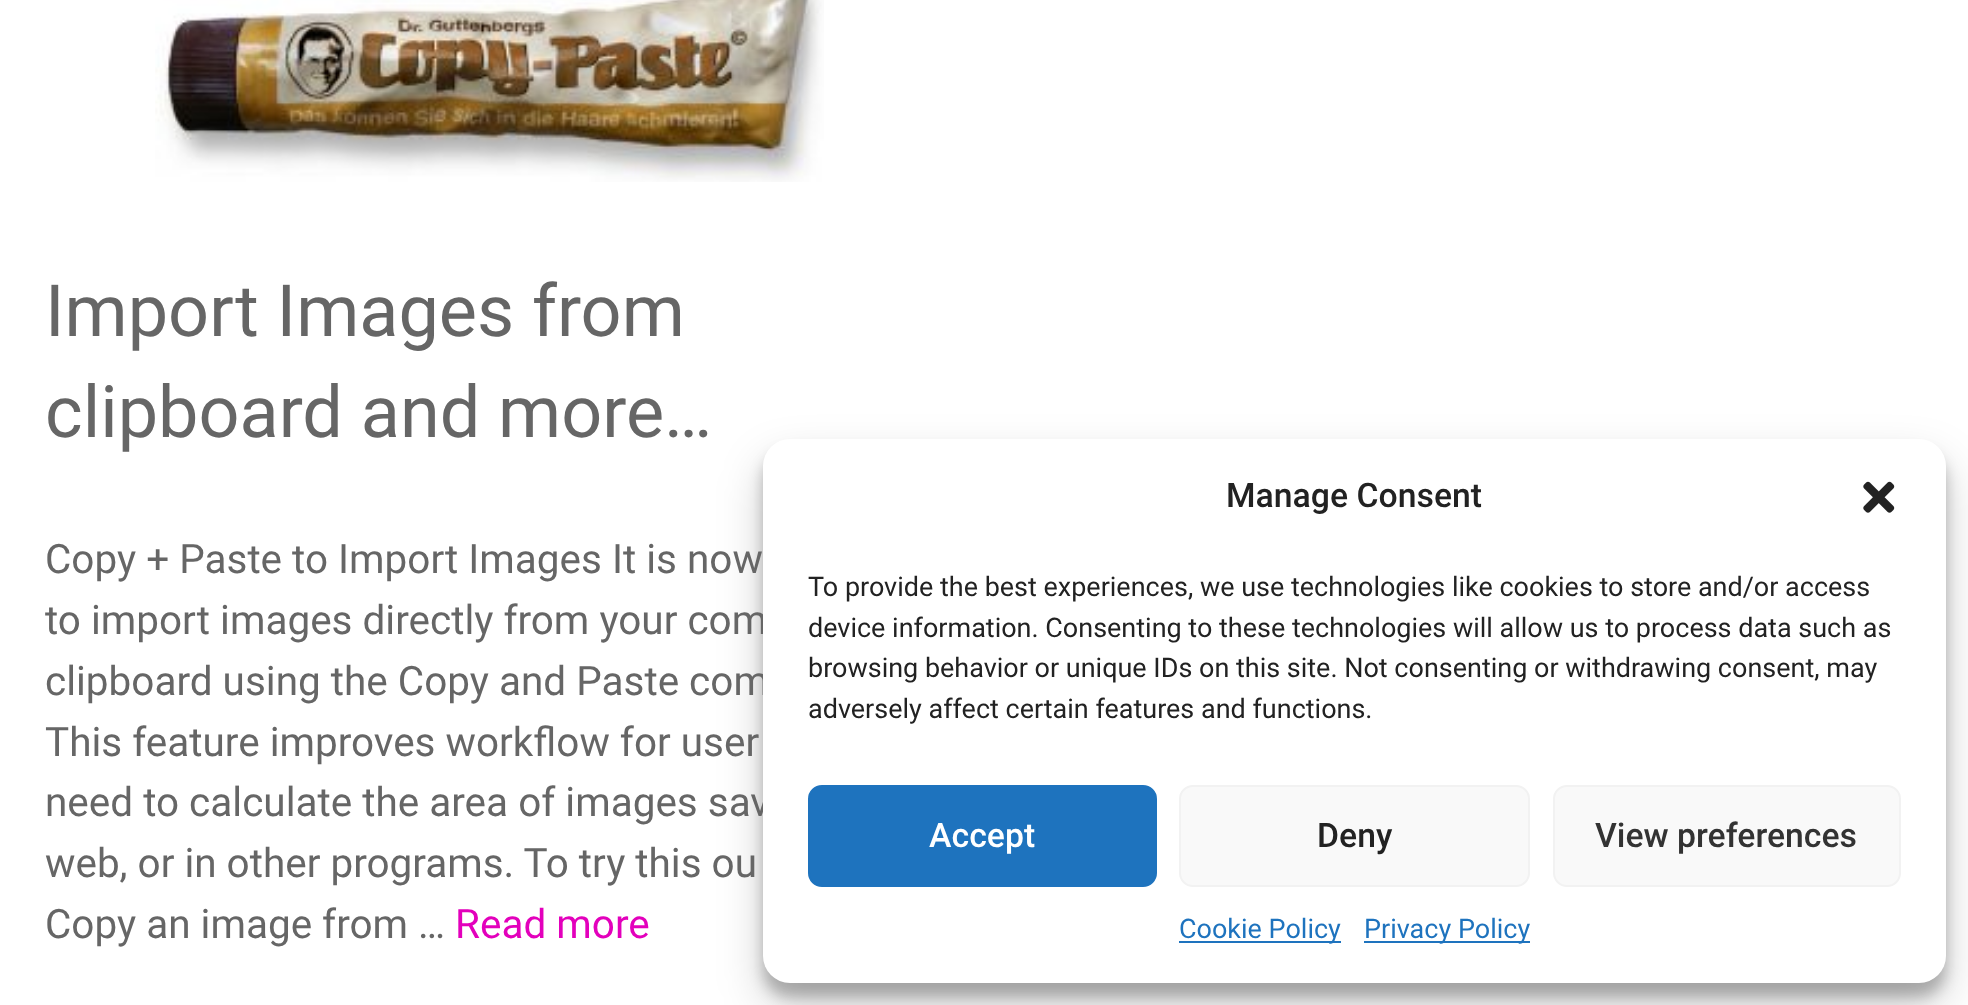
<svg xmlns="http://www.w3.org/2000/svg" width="1968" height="1005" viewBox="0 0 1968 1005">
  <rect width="100%" height="100%" fill="#fff"/>
  <image x="155" y="0" width="669" height="182" href="img/1.png"/>
  <rect x="763" y="452" width="1183" height="545" rx="27" fill="#0000003b" filter="blur(7px)"/>
  <rect x="763" y="461" width="1183" height="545" rx="27" fill="#00000030" filter="blur(22.5px)"/>
  <g font-family="Roboto" font-size="72" fill="#666">
    <text x="45" y="336">Import Images from</text>
    <text x="45" y="437">clipboard and more…</text>
  </g>
  <g font-family="Roboto" font-size="40.5" fill="#666">
    <text x="45" y="573">Copy + Paste to Import Images It is now</text>
    <text x="45" y="634">to import images directly from your com</text>
    <text x="45" y="695">clipboard using the Copy and Paste com</text>
    <text x="45" y="756">This feature improves workflow for user</text>
    <text x="45" y="816">need to calculate the area of images sav</text>
    <text x="45" y="877">web, or in other programs. To try this ou</text>
    <text x="45" y="938">Copy an image from …</text>
  </g>
  <text x="455" y="938" font-family="Roboto" font-size="40.5" fill="#e300bc">Read more</text>
  <rect x="763" y="439" width="1183" height="544" rx="27" fill="#fff"/>
  <text x="1226" y="507" font-family="Roboto" font-size="33.75" font-weight="500" fill="#222">Manage Consent</text>
  <image x="1863" y="481" width="32" height="32" href="img/2.png"/>
  <g font-family="Roboto" font-size="27" fill="#222">
    <text x="808" y="596">To provide the best experiences, we use technologies like cookies to store and/or access</text>
    <text x="808" y="637">device information. Consenting to these technologies will allow us to process data such as</text>
    <text x="808" y="677">browsing behavior or unique IDs on this site. Not consenting or withdrawing consent, may</text>
    <text x="808" y="718">adversely affect certain features and functions.</text>
  </g>
  <rect x="809" y="786" width="347" height="100" rx="13" fill="#1e73be" stroke="#1e73be" stroke-width="2"/>
  <text x="929" y="847" font-family="Roboto" font-size="33.75" font-weight="500" fill="#fff">Accept</text>
  <rect x="1180" y="786" width="349" height="100" rx="13" fill="#f9f9f9" stroke="#f2f2f2" stroke-width="2"/>
  <text x="1317" y="847" font-family="Roboto" font-size="33.75" font-weight="500" fill="#222">Deny</text>
  <rect x="1554" y="786" width="346" height="100" rx="13" fill="#f9f9f9" stroke="#f2f2f2" stroke-width="2"/>
  <text x="1595" y="847" font-family="Roboto" font-size="33.75" font-weight="500" fill="#333">View preferences</text>
  <path d="M1179 941h162v2H1179z" fill="#1e73be"/>
  <text x="1179" y="938" font-family="Roboto" font-size="27" fill="#1e73be">Cookie Policy</text>
  <path d="M1364 941h166v2H1364z" fill="#1e73be"/>
  <text x="1364" y="938" font-family="Roboto" font-size="27" fill="#1e73be">Privacy Policy</text>
</svg>
